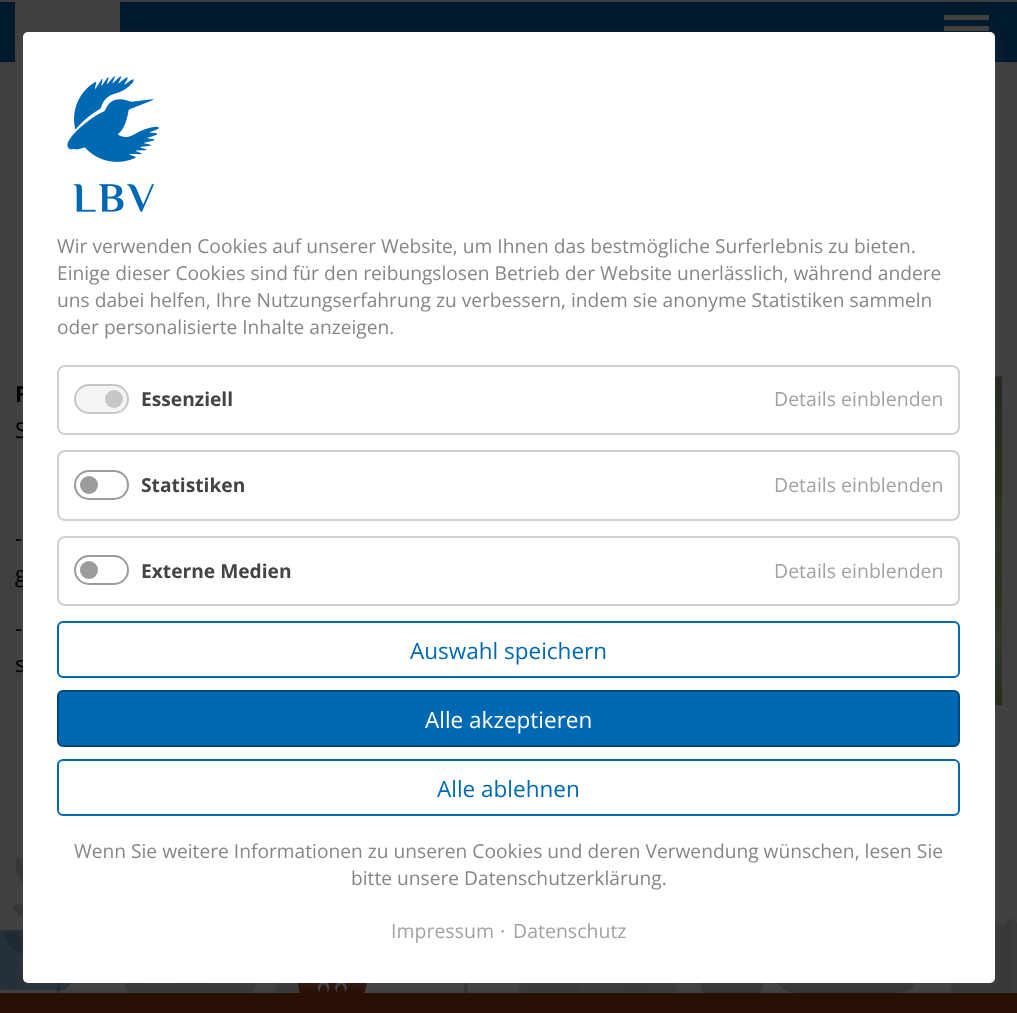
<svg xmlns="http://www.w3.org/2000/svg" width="1017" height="1013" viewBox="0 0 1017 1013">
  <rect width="100%" height="100%" fill="#404040"/>
  <path d="M0 2h1017v60H0z" fill="#001a2d"/>
  <image x="15" y="2" width="105" height="143" href="img/1.png"/>
  <path d="M944 26h45v5H944z" fill="#404040"/>
  <path d="M944 15h45v5H944z" fill="#404040"/>
  <image x="995" y="376" width="7" height="329" href="img/2.png"/>
  <path d="M0 993h1017v20H0z" fill="#290e04"/>
  <image x="3" y="857" width="1014" height="136" href="img/3.png"/>
  <image x="297" y="983" width="70" height="10" href="img/4.png"/>
  <path d="M0 930H60C66.5 930 72 935.5 72 942V978C72 984.5 66.5 990 60 990H0Z" fill="#001a2d66"/>
  <image x="21" y="952" width="2" height="16" href="img/5.png"/>
  <rect x="23" y="35" width="972" height="951" rx="5" fill="#63636333" filter="blur(6px)"/>
  <text x="15" y="402" font-family="Open Sans" font-size="22" font-weight="bold" fill="#000">F</text>
  <g font-family="Open Sans" font-size="22" fill="#000">
    <text x="15" y="438">S</text>
    <text x="15" y="546">-</text>
    <text x="15" y="582">g</text>
    <text x="15" y="636">-</text>
    <text x="15" y="672">s</text>
  </g>
  <rect x="23" y="32" width="972" height="951" rx="5" fill="#fff"/>
  <image x="67" y="76" width="92" height="136" href="img/6.png"/>
  <g font-family="Open Sans" font-size="19.2" fill="#868686">
    <text x="57" y="253">Wir verwenden Cookies auf unserer Website, um Ihnen das bestmögliche Surferlebnis zu bieten.</text>
    <text x="57" y="280">Einige dieser Cookies sind für den reibungslosen Betrieb der Website unerlässlich, während andere</text>
    <text x="57" y="307">uns dabei helfen, Ihre Nutzungserfahrung zu verbessern, indem sie anonyme Statistiken sammeln</text>
    <text x="57" y="334">oder personalisierte Inhalte anzeigen.</text>
  </g>
  <rect x="58" y="366" width="901" height="68" rx="7" fill="none" stroke="#d0d0d0" stroke-width="2"/>
  <rect x="75" y="385" width="53" height="28" rx="14" fill="#f4f4f4" stroke="#c8c7c5" stroke-width="2"/>
  <circle cx="114" cy="399" r="9" fill="#c8c7c5"/>
  <text x="141" y="406" font-family="Open Sans" font-size="19.2" font-weight="bold" fill="#444">Essenziell</text>
  <text x="774" y="406" font-family="Open Sans" font-size="19.5" fill="#a2a2a2">Details einblenden</text>
  <rect x="58" y="451" width="901" height="69" rx="7" fill="none" stroke="#d0d0d0" stroke-width="2"/>
  <rect x="75" y="471" width="53" height="28" rx="14" fill="none" stroke="#9c9b99" stroke-width="2"/>
  <circle cx="89" cy="485" r="9" fill="#9c9b99"/>
  <text x="141" y="492" font-family="Open Sans" font-size="19.2" font-weight="bold" fill="#444">Statistiken</text>
  <text x="774" y="492" font-family="Open Sans" font-size="19.5" fill="#a2a2a2">Details einblenden</text>
  <rect x="58" y="537" width="901" height="68" rx="7" fill="none" stroke="#d0d0d0" stroke-width="2"/>
  <rect x="75" y="556" width="53" height="28" rx="14" fill="none" stroke="#9c9b99" stroke-width="2"/>
  <circle cx="89" cy="570" r="9" fill="#9c9b99"/>
  <text x="141" y="578" font-family="Open Sans" font-size="19.2" font-weight="bold" fill="#444">Externe Medien</text>
  <text x="774" y="578" font-family="Open Sans" font-size="19.5" fill="#a2a2a2">Details einblenden</text>
  <rect x="58" y="622" width="901" height="55" rx="5" fill="none" stroke="#0069b4" stroke-width="2"/>
  <text x="410" y="659" font-family="Open Sans" font-size="22.5" fill="#0069b4">Auswahl speichern</text>
  <rect x="58" y="691" width="901" height="55" rx="5" fill="#0069b4" stroke="#00477c" stroke-width="2"/>
  <text x="425" y="728" font-family="Open Sans" font-size="22.5" fill="#fff">Alle akzeptieren</text>
  <rect x="58" y="760" width="901" height="55" rx="5" fill="none" stroke="#0069b4" stroke-width="2"/>
  <text x="437" y="797" font-family="Open Sans" font-size="22.5" fill="#0069b4">Alle ablehnen</text>
  <g font-family="Open Sans" font-size="19.2" fill="#868686">
    <text x="74" y="858">Wenn Sie weitere Informationen zu unseren Cookies und deren Verwendung wünschen, lesen Sie</text>
    <text x="351" y="885">bitte unsere Datenschutzerklärung.</text>
  </g>
  <g font-family="Open Sans" font-size="19.5" fill="#a2a2a2">
    <text x="391" y="938">Impressum</text>
    <text x="500" y="938">·</text>
    <text x="513" y="938">Datenschutz</text>
  </g>
</svg>
